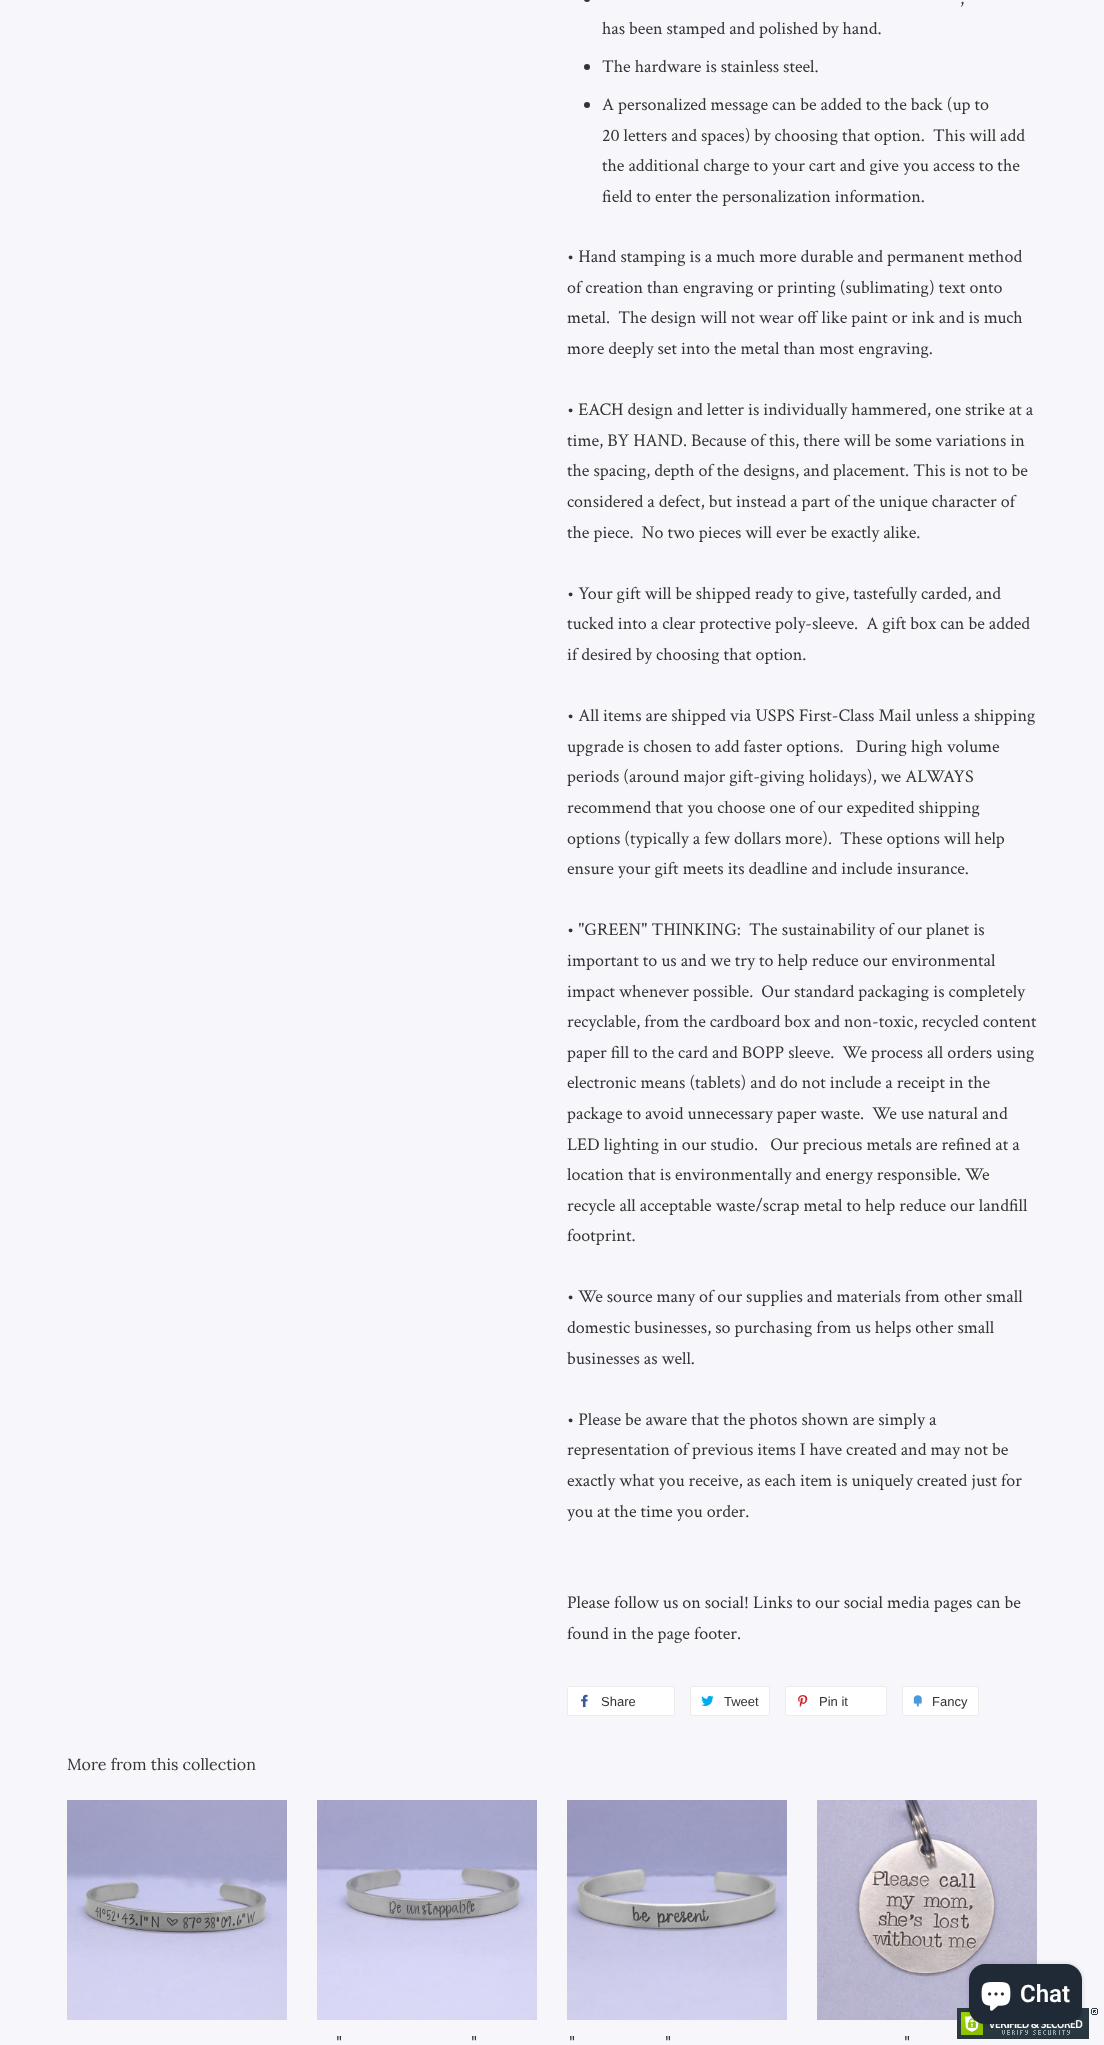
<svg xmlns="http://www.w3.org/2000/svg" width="1104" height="2045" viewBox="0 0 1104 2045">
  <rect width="100%" height="100%" fill="#f7f6fa"/>
  <rect x="584" y="-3" width="6" height="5" rx="3" fill="#333"/>
  <circle cx="587" cy="67" r="3" fill="#333"/>
  <circle cx="587" cy="105" r="3" fill="#333"/>
  <rect x="567.5" y="1686.5" width="107" height="29" rx="1.5" fill="#fff" stroke="#ececec"/>
  <image x="581" y="1694" width="7" height="14" href="img/1.png"/>
  <rect x="690.5" y="1686.5" width="79" height="29" rx="1.5" fill="#fff" stroke="#ececec"/>
  <image x="701" y="1695" width="13" height="11" href="img/2.png"/>
  <rect x="785.5" y="1686.5" width="101" height="29" rx="1.5" fill="#fff" stroke="#ececec"/>
  <image x="798" y="1695" width="10" height="12" href="img/3.png"/>
  <rect x="902.5" y="1686.5" width="76" height="29" rx="1.5" fill="#fff" stroke="#ececec"/>
  <image x="913" y="1695" width="9" height="12" href="img/4.png"/>
  <image x="67" y="1800" width="220" height="220" href="img/5.png"/>
  <image x="317" y="1800" width="220" height="220" href="img/6.png"/>
  <image x="567" y="1800" width="220" height="220" href="img/7.png"/>
  <image x="817" y="1800" width="220" height="220" href="img/8.png"/>
  <image x="957" y="2008" width="141" height="31" href="img/10.png"/>
  <rect x="969" y="1964" width="113" height="60" rx="16" fill="#00000026" filter="blur(2.5px)"/>
  <rect x="969" y="1964" width="113" height="60" rx="16" fill="#202a36"/>
  <image x="981" y="1982" width="30" height="29" href="img/9.png"/>
  <g font-family="Crimson Text" font-size="18" fill="#333">
    <text x="960" y="4">,</text>
    <text x="602" y="34">has been stamped and polished by hand.</text>
    <text x="602" y="72">The hardware is stainless steel.</text>
    <text x="602" y="110">A personalized message can be added to the back (up to</text>
    <text x="602" y="141">20 letters and spaces) by choosing that option.</text>
    <text x="933" y="141">This will add</text>
    <text x="602" y="171">the additional charge to your cart and give you access to the</text>
    <text x="602" y="202">field to enter the personalization information.</text>
    <text x="567" y="262">• Hand stamping is a much more durable and permanent method</text>
    <text x="567" y="293">of creation than engraving or printing (sublimating) text onto</text>
    <text x="567" y="323" xml:space="preserve">metal.  The design will not wear off like paint or ink and is much</text>
    <text x="567" y="354">more deeply set into the metal than most engraving.</text>
    <text x="567" y="415">• EACH design and letter is individually hammered, one strike at a</text>
    <text x="567" y="446">time, BY HAND. Because of this, there will be some variations in</text>
    <text x="567" y="476">the spacing, depth of the designs, and placement. This is not to be</text>
    <text x="567" y="507">considered a defect, but instead a part of the unique character of</text>
    <text x="567" y="538" xml:space="preserve">the piece.  No two pieces will ever be exactly alike.</text>
    <text x="567" y="599">• Your gift will be shipped ready to give, tastefully carded, and</text>
    <text x="567" y="629" xml:space="preserve">tucked into a clear protective poly-sleeve.  A gift box can be added</text>
    <text x="567" y="660">if desired by choosing that option.</text>
    <text x="567" y="721">• All items are shipped via USPS First-Class Mail unless a shipping</text>
    <text x="567" y="752" xml:space="preserve">upgrade is chosen to add faster options.   During high volume</text>
    <text x="567" y="782">periods (around major gift-giving holidays), we ALWAYS</text>
    <text x="567" y="813">recommend that you choose one of our expedited shipping</text>
    <text x="567" y="844" xml:space="preserve">options (typically a few dollars more).  These options will help</text>
    <text x="567" y="874">ensure your gift meets its deadline and include insurance.</text>
    <text x="567" y="935" xml:space="preserve">• "GREEN" THINKING:  The sustainability of our planet is</text>
    <text x="567" y="966">important to us and we try to help reduce our environmental</text>
    <text x="567" y="997" xml:space="preserve">impact whenever possible.  Our standard packaging is completely</text>
    <text x="567" y="1027">recyclable, from the cardboard box and non-toxic, recycled content</text>
    <text x="567" y="1058" xml:space="preserve">paper fill to the card and BOPP sleeve.  We process all orders using</text>
    <text x="567" y="1088">electronic means (tablets) and do not include a receipt in the</text>
    <text x="567" y="1119" xml:space="preserve">package to avoid unnecessary paper waste.  We use natural and</text>
    <text x="567" y="1150" xml:space="preserve">LED lighting in our studio.   Our precious metals are refined at a</text>
    <text x="567" y="1180">location that is environmentally and energy responsible. We</text>
    <text x="567" y="1211">recycle all acceptable waste/scrap metal to help reduce our landfill</text>
    <text x="567" y="1241">footprint.</text>
    <text x="567" y="1302">• We source many of our supplies and materials from other small</text>
    <text x="567" y="1333">domestic businesses, so purchasing from us helps other small</text>
    <text x="567" y="1364">businesses as well.</text>
    <text x="567" y="1425">• Please be aware that the photos shown are simply a</text>
    <text x="567" y="1455">representation of previous items I have created and may not be</text>
    <text x="567" y="1486">exactly what you receive, as each item is uniquely created just for</text>
    <text x="567" y="1517">you at the time you order.</text>
    <text x="567" y="1608">Please follow us on social! Links to our social media pages can be</text>
    <text x="567" y="1639">found in the page footer.</text>
  </g>
  <g font-family="Liberation Sans" font-size="13" fill="#333">
    <text x="601" y="1706">Share</text>
    <text x="724" y="1706">Tweet</text>
    <text x="819" y="1706">Pin it</text>
    <text x="932" y="1706">Fancy</text>
  </g>
  <text x="67" y="1770" font-family="Lora" font-size="16" fill="#333">More from this collection</text>
  <g font-family="Lora" font-size="18" fill="#333">
    <text x="336" y="2049">"</text>
    <text x="471" y="2049">"</text>
    <text x="569" y="2049">"</text>
    <text x="665" y="2049">"</text>
    <text x="904" y="2049">"</text>
  </g>
  <text x="1020" y="2002" font-family="Roboto" font-size="24" font-weight="600" fill="#fff">Chat</text>
</svg>
